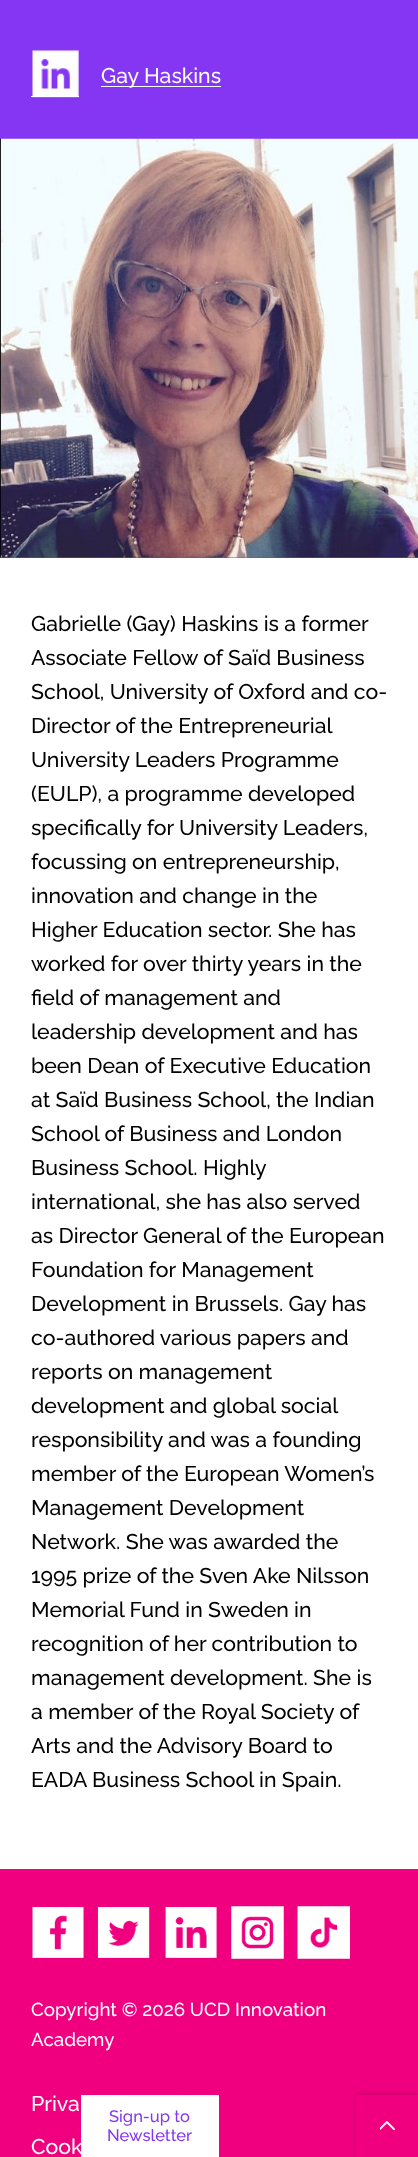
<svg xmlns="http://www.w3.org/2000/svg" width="418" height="2157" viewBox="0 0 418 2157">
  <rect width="100%" height="100%" fill="#fff"/>
  <path d="M0 0h418v558H0z" fill="#8536f2"/>
  <path d="M31 96h48v1H31z" fill="#fff"/>
  <path d="M101 86h120v1H101z" fill="#fff"/>
  <image x="32" y="50" width="47" height="48" href="img/1.png"/>
  <image x="0" y="138" width="418" height="420" href="img/2.png"/>
  <path d="M0 1869h418v288H0z" fill="#f0007f"/>
  <image x="32" y="1907" width="52" height="51" href="img/3.png"/>
  <image x="97" y="1907" width="53" height="51" href="img/4.png"/>
  <image x="165" y="1907" width="52" height="51" href="img/5.png"/>
  <image x="231" y="1906" width="53" height="53" href="img/6.png"/>
  <image x="297" y="1906" width="53" height="53" href="img/7.png"/>
  <path d="M358 2096h60v60H358z" fill="#00000059" filter="blur(3px)"/>
  <path d="M356 2095h62v62H356z" fill="#f0007f"/>
  <image x="380" y="2121" width="15" height="10" href="img/8.png"/>
  <path d="M81 2095h138v62H81z" fill="#fff"/>
  <text x="101" y="83" font-family="Raleway" font-size="21.25" font-weight="500" fill="#fff">Gay Haskins</text>
  <g font-family="Raleway" font-size="21.25" font-weight="500" fill="#000">
    <text x="31" y="631">Gabrielle (Gay) Haskins is a former</text>
    <text x="31" y="665">Associate Fellow of Saïd Business</text>
    <text x="31" y="699">School, University of Oxford and co-</text>
    <text x="31" y="733">Director of the Entrepreneurial</text>
    <text x="31" y="767">University Leaders Programme</text>
    <text x="31" y="801">(EULP), a programme developed</text>
    <text x="31" y="835">specifically for University Leaders,</text>
    <text x="31" y="869">focussing on entrepreneurship,</text>
    <text x="31" y="903">innovation and change in the</text>
    <text x="31" y="937">Higher Education sector. She has</text>
    <text x="31" y="971">worked for over thirty years in the</text>
    <text x="31" y="1005">field of management and</text>
    <text x="31" y="1039">leadership development and has</text>
    <text x="31" y="1073">been Dean of Executive Education</text>
    <text x="31" y="1107">at Saïd Business School, the Indian</text>
    <text x="31" y="1141">School of Business and London</text>
    <text x="31" y="1175">Business School. Highly</text>
    <text x="31" y="1209">international, she has also served</text>
    <text x="31" y="1243">as Director General of the European</text>
    <text x="31" y="1277">Foundation for Management</text>
    <text x="31" y="1311">Development in Brussels. Gay has</text>
    <text x="31" y="1345">co-authored various papers and</text>
    <text x="31" y="1379">reports on management</text>
    <text x="31" y="1413">development and global social</text>
    <text x="31" y="1447">responsibility and was a founding</text>
    <text x="31" y="1481">member of the European Women’s</text>
    <text x="31" y="1515">Management Development</text>
    <text x="31" y="1549">Network. She was awarded the</text>
    <text x="31" y="1583">1995 prize of the Sven Ake Nilsson</text>
    <text x="31" y="1617">Memorial Fund in Sweden in</text>
    <text x="31" y="1651">recognition of her contribution to</text>
    <text x="31" y="1685">management development. She is</text>
    <text x="31" y="1719">a member of the Royal Society of</text>
    <text x="31" y="1753">Arts and the Advisory Board to</text>
    <text x="31" y="1787">EADA Business School in Spain.</text>
  </g>
  <g font-family="Raleway" font-size="18.75" font-weight="500" fill="#fff">
    <text x="31" y="2016">Copyright © 2026 UCD Innovation</text>
    <text x="31" y="2046">Academy</text>
  </g>
  <g font-family="Raleway" font-size="21.25" font-weight="500" fill="#fff">
    <text x="31" y="2111">Priva</text>
    <text x="31" y="2154">Cook</text>
  </g>
  <g font-family="Raleway" font-size="16.5" font-weight="500" fill="#8536f2">
    <text x="109" y="2122">Sign-up to</text>
    <text x="107" y="2141">Newsletter</text>
  </g>
</svg>
